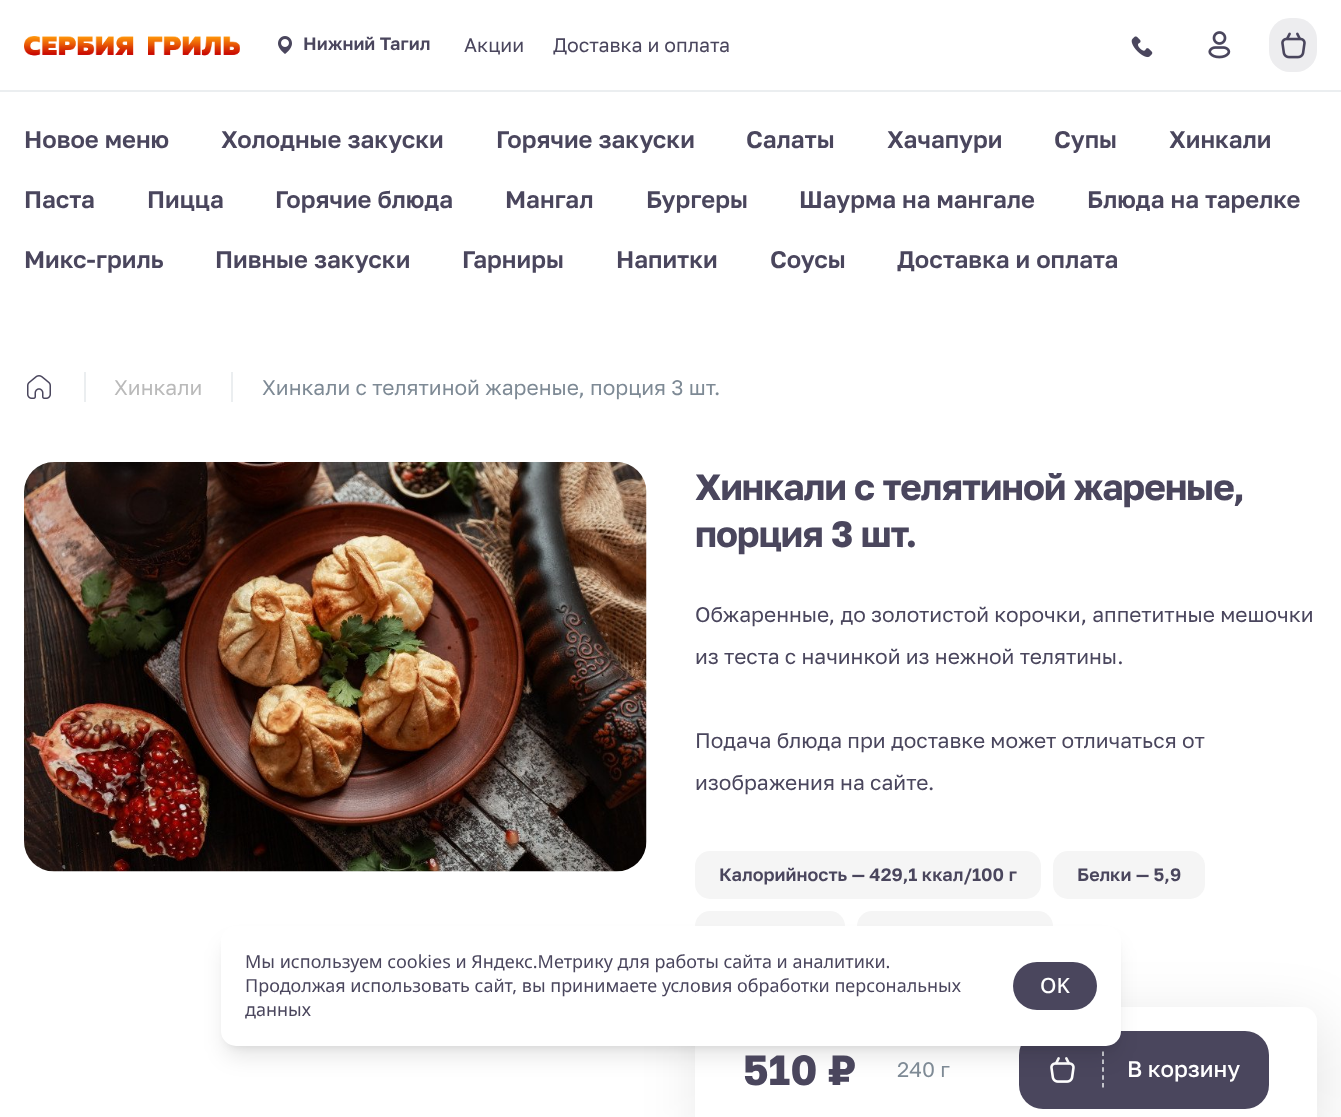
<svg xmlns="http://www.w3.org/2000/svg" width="1341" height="1117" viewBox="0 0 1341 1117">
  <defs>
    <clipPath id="clip1"><path d="M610 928H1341V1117H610ZM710 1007H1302C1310.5 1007 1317 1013.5 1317 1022V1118C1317 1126.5 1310.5 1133 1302 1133H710C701.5 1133 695 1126.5 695 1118V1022C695 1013.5 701.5 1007 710 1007Z" clip-rule="evenodd"/></clipPath>
  </defs>
  <rect width="100%" height="100%" fill="#fff"/>
  <path d="M0 90h1341v2H0z" fill="#ebeef0"/>
  <image x="24" y="36" width="216" height="20" href="img/1.png"/>
  <image x="278" y="36" width="14" height="18" href="img/2.png"/>
  <image x="1131" y="36" width="22" height="22" href="img/3.png"/>
  <image x="1208" y="31" width="23" height="28" href="img/4.png"/>
  <rect x="1269" y="18" width="48" height="54" rx="21" fill="#ededef"/>
  <image x="1281" y="32" width="25" height="27" href="img/5.png"/>
  <image x="27" y="375" width="24" height="24" href="img/6.png"/>
  <path d="M84 372h2v30H84z" fill="#ebeef0"/>
  <path d="M231 372h2v30H231z" fill="#ebeef0"/>
  <image x="24" y="462" width="623" height="410" href="img/7.png"/>
  <rect x="695" y="851" width="346" height="48" rx="15" fill="#f5f5f5"/>
  <rect x="1053" y="851" width="152" height="48" rx="15" fill="#f5f5f5"/>
  <rect x="695" y="911" width="150" height="48" rx="15" fill="#f5f5f5"/>
  <rect x="857" y="911" width="196" height="48" rx="15" fill="#f5f5f5"/>
  <g clip-path="url(#clip1)">
    <rect x="701" y="1019" width="622" height="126" rx="15" fill="#0000001a" filter="blur(30px)"/>
  </g>
  <rect x="1019" y="1031" width="250" height="78" rx="24" fill="#4a465d"/>
  <image x="1050" y="1057" width="25" height="26" href="img/8.png"/>
  <path d="M1103 1051.5V1087.5" fill="none" stroke="#ebeef0" stroke-width="1.5" stroke-dasharray="4.5 3.38"/>
  <rect x="227" y="938" width="888" height="108" rx="9" fill="#0000001a" filter="blur(4.5px)"/>
  <rect x="225" y="945" width="891" height="111" rx="11" fill="#0000001a" filter="blur(11px)"/>
  <rect x="221" y="926" width="900" height="120" rx="15" fill="#fff"/>
  <rect x="1013" y="962" width="84" height="48" rx="24" fill="#4a465d"/>
  <text x="303" y="50" font-family="Golos Text" font-size="18" font-weight="600" fill="#4a465d">Нижний Тагил</text>
  <g font-family="Golos Text" font-size="19.5" fill="#4a465d">
    <text x="464" y="52">Акции</text>
    <text x="553" y="52">Доставка и оплата</text>
  </g>
  <g font-family="Golos Text" font-size="24" font-weight="600" fill="#4a465d">
    <text x="24" y="148">Новое меню</text>
    <text x="221" y="148">Холодные закуски</text>
    <text x="496" y="148">Горячие закуски</text>
    <text x="746" y="148">Салаты</text>
    <text x="887" y="148">Хачапури</text>
    <text x="1054" y="148">Супы</text>
    <text x="1169" y="148">Хинкали</text>
    <text x="24" y="208">Паста</text>
    <text x="147" y="208">Пицца</text>
    <text x="275" y="208">Горячие блюда</text>
    <text x="505" y="208">Мангал</text>
    <text x="646" y="208">Бургеры</text>
    <text x="799" y="208">Шаурма на мангале</text>
    <text x="1087" y="208">Блюда на тарелке</text>
    <text x="24" y="268">Микс-гриль</text>
    <text x="215" y="268">Пивные закуски</text>
    <text x="462" y="268">Гарниры</text>
    <text x="616" y="268">Напитки</text>
    <text x="770" y="268">Соусы</text>
    <text x="897" y="268">Доставка и оплата</text>
  </g>
  <text x="114" y="395" font-family="Golos Text" font-size="21" fill="#bababa">Хинкали</text>
  <text x="262" y="395" font-family="Golos Text" font-size="21" fill="#7e8a95">Хинкали с телятиной жареные, порция 3 шт.</text>
  <g font-family="Golos Text" font-size="36.6" font-weight="bold" letter-spacing="-0.9" fill="#4a465d">
    <text x="695" y="500">Хинкали с телятиной жареные,</text>
    <text x="695" y="547">порция 3 шт.</text>
  </g>
  <g font-family="Golos Text" font-size="21" fill="#4a465d">
    <text x="695" y="622">Обжаренные, до золотистой корочки, аппетитные мешочки</text>
    <text x="695" y="664">из теста с начинкой из нежной телятины.</text>
    <text x="695" y="748">Подача блюда при доставке может отличаться от</text>
    <text x="695" y="790">изображения на сайте.</text>
  </g>
  <g font-family="Golos Text" font-size="18" font-weight="600" fill="#4a465d">
    <text x="719" y="881">Калорийность — 429,1 ккал/100 г</text>
    <text x="1077" y="881">Белки — 5,9</text>
  </g>
  <text x="743" y="1085" font-family="Golos Text" font-size="42" font-weight="bold" fill="#4a465d">510 ₽</text>
  <text x="897" y="1077" font-family="Golos Text" font-size="21" fill="#7e8a95">240 г</text>
  <text x="1127" y="1077" font-family="Golos Text" font-size="22.5" font-weight="500" fill="#fff">В корзину</text>
  <g font-family="Noto Sans" font-size="18" fill="#4a465d">
    <text x="245" y="968">Мы используем cookies и Яндекс.Метрику для работы сайта и аналитики.</text>
    <text x="245" y="992">Продолжая использовать сайт, вы принимаете условия обработки персональных</text>
    <text x="245" y="1016">данных</text>
  </g>
  <text x="1040" y="993" font-family="Noto Sans" font-size="21" font-weight="500" fill="#fff">OK</text>
</svg>
